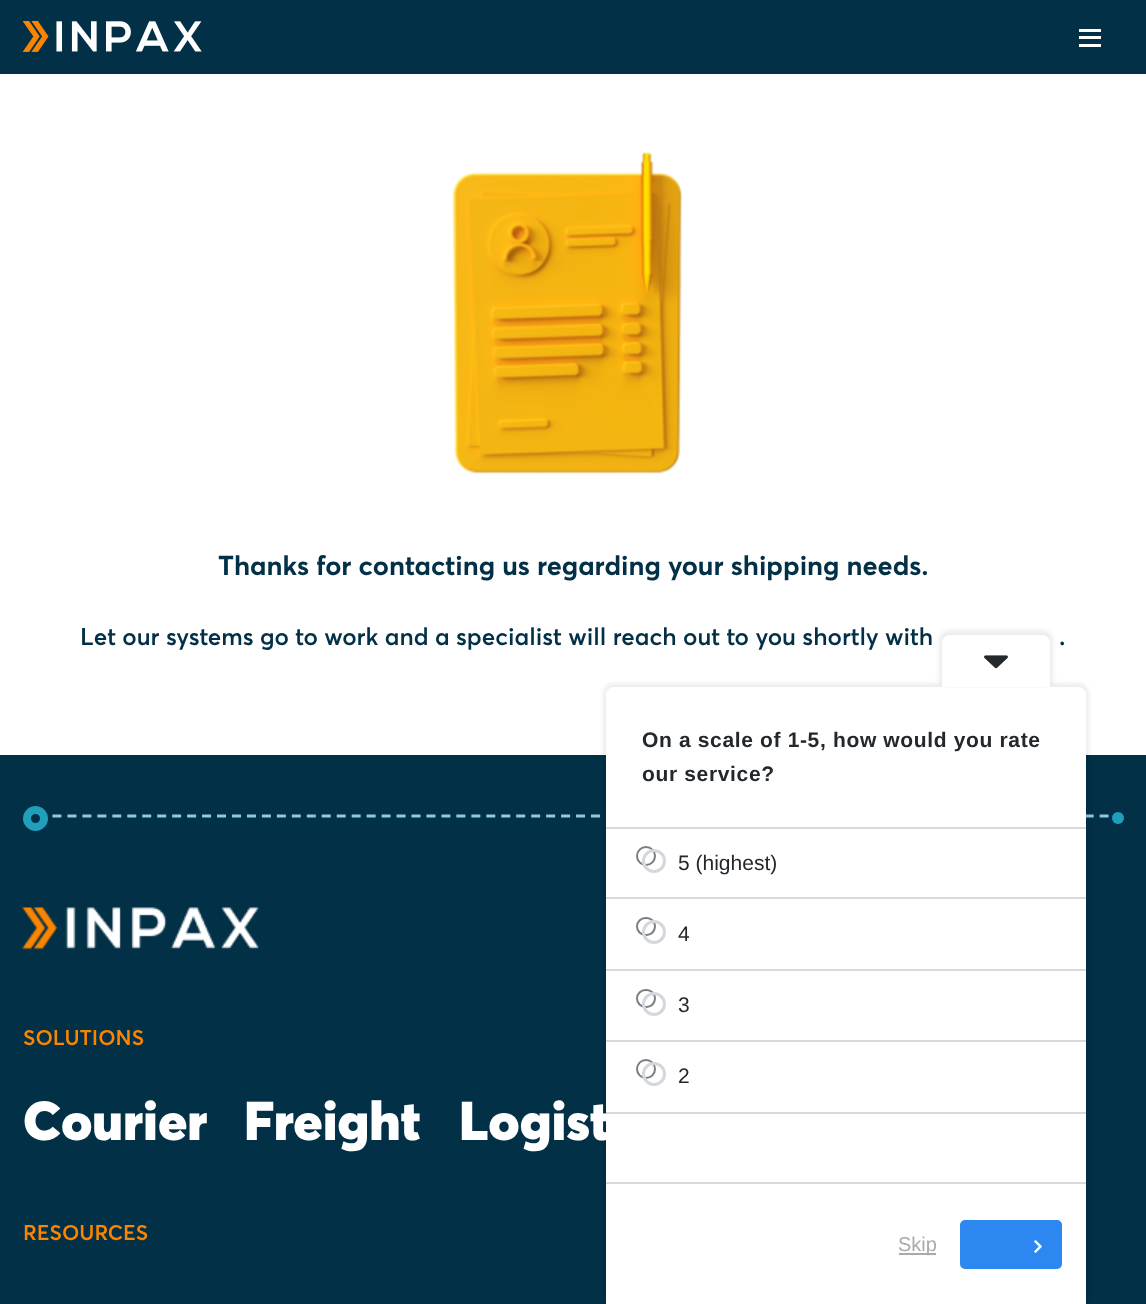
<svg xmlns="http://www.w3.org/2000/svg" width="1146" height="1304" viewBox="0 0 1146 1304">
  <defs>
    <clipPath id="clip1"><path d="M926 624.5H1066L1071.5 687.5H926Z"/></clipPath>
  </defs>
  <rect width="100%" height="100%" fill="#023047"/>
  <image x="23" y="21" width="179" height="31" href="img/1.png"/>
  <path d="M1079 29h22v3H1079z" fill="#fff"/>
  <path d="M1079 36h22v3H1079z" fill="#fff"/>
  <path d="M1079 44h22v3H1079z" fill="#fff"/>
  <path d="M0 74h1146v681H0z" fill="#fff"/>
  <image x="452" y="152" width="231" height="322" href="img/2.png"/>
  <path d="M37.5 816H1108.5" fill="none" stroke="#8ecae6" stroke-width="3" stroke-dasharray="9 5.96"/>
  <circle cx="35.5" cy="818.5" r="8.5" fill="#023047" stroke="#219ebc" stroke-width="8"/>
  <circle cx="1118" cy="818" r="6" fill="#219ebc"/>
  <image x="22" y="907" width="237" height="43" href="img/3.png"/>
  <rect x="603" y="683" width="486" height="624" rx="11" fill="#00000012" filter="blur(2px)"/>
  <path d="M614 687H1078C1082.5 687 1086 690.5 1086 695V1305H606V695C606 690.5 609.5 687 614 687Z" fill="#fff"/>
  <g clip-path="url(#clip1)">
    <rect x="939" y="630" width="114" height="59" rx="11" fill="#00000012" filter="blur(2px)"/>
  </g>
  <path d="M950 635H1042C1046.5 635 1050 638.5 1050 643V687H942V643C942 638.5 945.5 635 950 635Z" fill="#fff"/>
  <image x="984" y="655" width="24" height="14" href="img/4.png"/>
  <path d="M606 827h480v2H606z" fill="#d9d9d9"/>
  <path d="M606 1182h480v2H606z" fill="#d9d9d9"/>
  <circle cx="646" cy="856" r="9" fill="none" stroke="#767676" stroke-width="2"/>
  <rect x="637" y="918" width="18" height="17" rx="8.5" fill="none" stroke="#767676" stroke-width="2"/>
  <rect x="637" y="990" width="18" height="17" rx="8.5" fill="none" stroke="#767676" stroke-width="2"/>
  <circle cx="646" cy="1069" r="9" fill="none" stroke="#767676" stroke-width="2"/>
  <path d="M636 846h20v233H636z" fill="#ffffff0d"/>
  <path d="M606 897h480v2H606z" fill="#d9d9d9"/>
  <circle cx="654" cy="861" r="10.5" fill="none" stroke="#d3d7de" stroke-width="3"/>
  <path d="M606 969h480v2H606z" fill="#d9d9d9"/>
  <circle cx="654" cy="932" r="10.5" fill="none" stroke="#d3d7de" stroke-width="3"/>
  <path d="M606 1040h480v2H606z" fill="#d9d9d9"/>
  <circle cx="654" cy="1004" r="10.5" fill="none" stroke="#d3d7de" stroke-width="3"/>
  <circle cx="654" cy="1074" r="10.5" fill="none" stroke="#d3d7de" stroke-width="3"/>
  <path d="M899 1253h37v2H899z" fill="#aaa"/>
  <rect x="960" y="1220" width="102" height="49" rx="5" fill="#2d87f1"/>
  <image x="1034" y="1240" width="8" height="13" href="img/5.png"/>
  <text x="218" y="575" font-family="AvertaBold" font-size="27" font-weight="bold" fill="#023047">Thanks for contacting us regarding your shipping needs.</text>
  <g font-family="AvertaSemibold" font-size="24" font-weight="600" fill="#023047">
    <text x="80" y="645">Let our systems go to work and a specialist will reach out to you shortly with</text>
    <text x="1059" y="645">.</text>
  </g>
  <text x="23" y="1045" font-family="AvertaSemibold" font-size="21" font-weight="600" fill="#fb8500">SOLUTIONS</text>
  <g font-family="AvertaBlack" font-size="54" font-weight="900" fill="#fff">
    <text x="23" y="1140">Courier</text>
    <text x="244" y="1140">Freight</text>
    <text x="459" y="1140">Logist</text>
  </g>
  <text x="23" y="1240" font-family="AvertaSemibold" font-size="21" font-weight="600" fill="#fb8500">RESOURCES</text>
  <g font-family="Liberation Sans" font-size="21" font-weight="bold" letter-spacing="0.65" fill="#23282d">
    <text x="642" y="747">On a scale of 1-5, how would you rate</text>
    <text x="642" y="781">our service?</text>
  </g>
  <g font-family="Liberation Sans" font-size="21" fill="#23282d">
    <text x="678" y="870">5 (highest)</text>
    <text x="678" y="941">4</text>
    <text x="678" y="1012">3</text>
  </g>
  <path d="M606 1112h480v2H606z" fill="#d9d9d9"/>
  <text x="678" y="1083" font-family="Liberation Sans" font-size="21" fill="#23282d">2</text>
  <text x="898" y="1251" font-family="Liberation Sans" font-size="20" fill="#aaa">Skip</text>
</svg>
